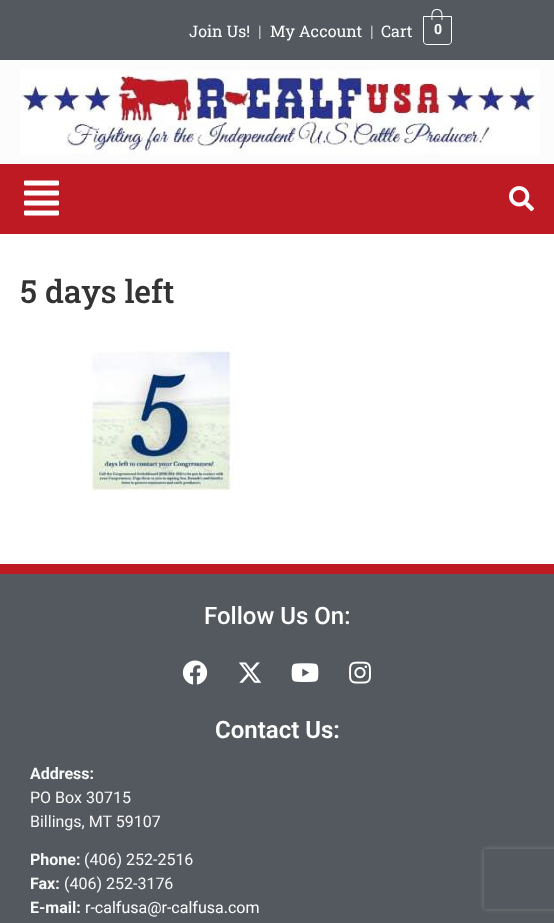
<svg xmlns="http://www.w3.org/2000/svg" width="554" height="923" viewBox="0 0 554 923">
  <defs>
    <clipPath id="clip1"><path d="M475 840H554V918H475ZM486 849H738C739 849 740 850 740 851V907C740 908 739 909 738 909H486C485 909 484 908 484 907V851C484 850 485 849 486 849Z" clip-rule="evenodd"/></clipPath>
  </defs>
  <rect width="100%" height="100%" fill="#fff"/>
  <path d="M0 0h554v60H0z" fill="#54595f"/>
  <path d="M423.5 16.5H451.5V41C451.5 43 450 44.5 448 44.5H427C425 44.5 423.5 43 423.5 41Z" fill="none" stroke="#fff"/>
  <path d="M437 9C443.5 9 442.5 15.5 442.5 20H431.5C431.5 15.5 430.5 9 437 9ZM437 10C442.5 10 441.5 16.5 441.5 20H432.5C432.5 16.5 431.5 10 437 10Z" fill="#fff" fill-rule="evenodd"/>
  <path d="M0 60h554v104H0z" fill="#fcfcfc"/>
  <image x="20" y="70" width="520" height="84" href="img/1.png"/>
  <path d="M0 164h554v70H0z" fill="#be1a23"/>
  <image x="24" y="180" width="35" height="36" href="img/2.png"/>
  <image x="509" y="186" width="25" height="26" href="img/3.png"/>
  <image x="90" y="343" width="144" height="148" href="img/4.png"/>
  <path d="M0 574h554v349H0z" fill="#54595f"/>
  <path d="M0 564h554v10H0z" fill="#be1a23"/>
  <image x="182" y="660" width="26" height="25" href="img/5.png"/>
  <image x="239" y="662" width="23" height="21" href="img/6.png"/>
  <image x="291" y="663" width="28" height="19" href="img/7.png"/>
  <image x="349" y="661" width="22" height="23" href="img/8.png"/>
  <g clip-path="url(#clip1)">
    <rect x="484" y="849" width="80" height="60" rx="2" fill="#808080" filter="blur(2.5px)"/>
  </g>
  <text x="189" y="37" font-family="Roboto Slab" font-size="16" fill="#fff">Join Us!</text>
  <text x="258" y="37" font-family="Roboto Slab" font-size="16" fill="#ccc">|</text>
  <text x="270" y="37" font-family="Roboto Slab" font-size="16" fill="#fff">My Account</text>
  <text x="370" y="37" font-family="Roboto Slab" font-size="16" fill="#ccc">|</text>
  <text x="381" y="37" font-family="Roboto Slab" font-size="16" fill="#fff">Cart</text>
  <text x="434" y="34" font-family="Roboto" font-size="14" font-weight="bold" fill="#fff">0</text>
  <text x="20" y="303" font-family="Roboto Slab" font-size="32" font-weight="500" fill="#333">5 days left</text>
  <text x="204" y="624" font-family="Roboto" font-size="24" font-weight="500" fill="#fff">Follow Us On:</text>
  <text x="215" y="738" font-family="Roboto" font-size="24" font-weight="600" fill="#fff">Contact Us:</text>
  <text x="30" y="779" font-family="Roboto" font-size="16" font-weight="bold" fill="#f8f8f8">Address:</text>
  <g font-family="Roboto" font-size="16" fill="#f8f8f8">
    <text x="30" y="803">PO Box 30715</text>
    <text x="30" y="827">Billings, MT 59107</text>
  </g>
  <text x="30" y="865" font-family="Roboto" font-size="16" font-weight="bold" fill="#f8f8f8">Phone:</text>
  <text x="84" y="865" font-family="Roboto" font-size="16" fill="#f8f8f8">(406) 252-2516</text>
  <text x="30" y="889" font-family="Roboto" font-size="16" font-weight="bold" fill="#f8f8f8">Fax:</text>
  <text x="64" y="889" font-family="Roboto" font-size="16" fill="#f8f8f8">(406) 252-3176</text>
  <text x="30" y="913" font-family="Roboto" font-size="16" font-weight="bold" fill="#f8f8f8">E-mail:</text>
  <text x="85" y="913" font-family="Roboto" font-size="16" fill="#fff">r-calfusa@r-calfusa.com</text>
</svg>
